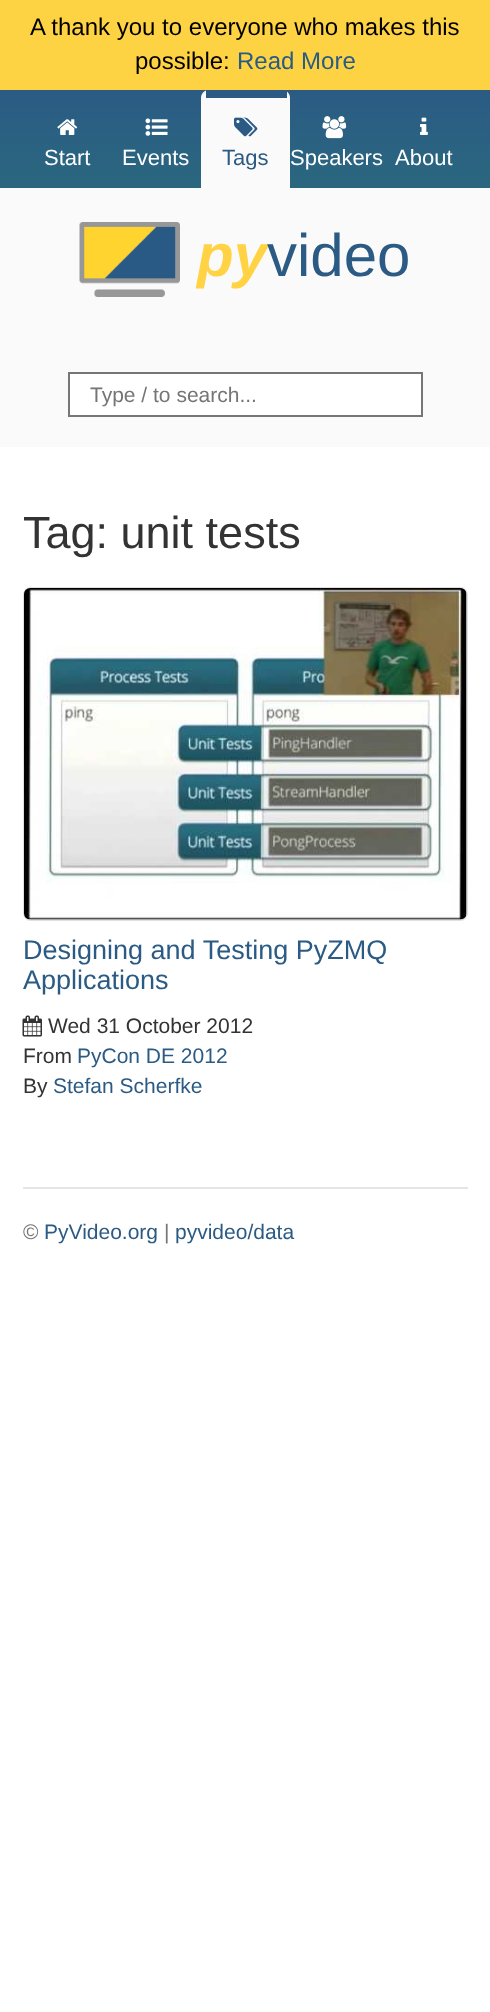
<svg xmlns="http://www.w3.org/2000/svg" width="490" height="2012" viewBox="0 0 490 2012">
  <defs>
    <linearGradient id="g1" gradientUnits="userSpaceOnUse" x1="245" y1="90" x2="245" y2="188"><stop offset="0" stop-color="#2b5b84"/><stop offset="1" stop-color="#2a677f"/></linearGradient>
  </defs>
  <rect width="100%" height="100%" fill="#fff"/>
  <path d="M0 0h490v90H0z" fill="#fed343"/>
  <path d="M0 188h490v259H0z" fill="#fafafa"/>
  <path d="M0 90h490v98H0z" fill="url(#g1)"/>
  <image x="57" y="119" width="21" height="16" href="img/1.png"/>
  <image x="145" y="118" width="23" height="18" href="img/2.png"/>
  <path d="M209 90H282C286.5 90 290 93.5 290 98V188H201V98C201 93.5 204.5 90 209 90Z" fill="#fafafa"/>
  <path d="M206 90h81v8H206z" fill="#2b5b84"/>
  <image x="234" y="117" width="24" height="20" href="img/3.png"/>
  <image x="322" y="116" width="25" height="23" href="img/4.png"/>
  <image x="420" y="117" width="8" height="18" href="img/5.png"/>
  <image x="79" y="222" width="101" height="75" href="img/6.png"/>
  <path d="M69 373h353v43H69z" fill="#fff" stroke="#767676" stroke-width="2"/>
  <rect x="24" y="588" width="443" height="332" rx="7" fill="none" stroke="#e0e0e0" stroke-width="2"/>
  <image x="24" y="588" width="443" height="332" href="img/7.png"/>
  <image x="22" y="1015" width="20" height="22" href="img/8.png"/>
  <path d="M23 1187h445v2H23z" fill="#e5e5e5"/>
  <g font-family="Liberation Sans" font-size="24" fill="#000">
    <text x="30" y="35">A thank you to everyone who makes this</text>
    <text x="135" y="69">possible:</text>
  </g>
  <text x="237" y="69" font-family="Liberation Sans" font-size="24" fill="#2b5b84">Read More</text>
  <g font-family="Liberation Sans" font-size="22" fill="#fff">
    <text x="44" y="165">Start</text>
    <text x="122" y="165">Events</text>
  </g>
  <text x="222" y="165" font-family="Liberation Sans" font-size="22" fill="#2b5b84">Tags</text>
  <g font-family="Liberation Sans" font-size="22" fill="#fff">
    <text x="290" y="165">Speakers</text>
    <text x="395" y="165">About</text>
  </g>
  <text x="197" y="276" font-family="Liberation Sans" font-size="60" font-weight="bold" font-style="italic" fill="#ffd343">py</text>
  <text x="267" y="276" font-family="Liberation Sans" font-size="60" fill="#2b5b84">video</text>
  <text x="90" y="402" font-family="Liberation Sans" font-size="21" fill="#757575">Type / to search...</text>
  <text x="23" y="548" font-family="Liberation Sans" font-size="45" fill="#333">Tag: unit tests</text>
  <g font-family="Liberation Sans" font-size="27" fill="#2b5b84">
    <text x="23" y="959">Designing and Testing PyZMQ</text>
    <text x="23" y="989">Applications</text>
  </g>
  <g font-family="Liberation Sans" font-size="21" fill="#333">
    <text x="48" y="1033">Wed 31 October 2012</text>
    <text x="23" y="1063">From</text>
  </g>
  <text x="77" y="1063" font-family="Liberation Sans" font-size="21" fill="#2b5b84">PyCon DE 2012</text>
  <text x="23" y="1093" font-family="Liberation Sans" font-size="21" fill="#333">By</text>
  <text x="53" y="1093" font-family="Liberation Sans" font-size="21" fill="#2b5b84">Stefan Scherfke</text>
  <text x="23" y="1239" font-family="Liberation Sans" font-size="21" fill="#757575">©</text>
  <text x="44" y="1239" font-family="Liberation Sans" font-size="21" fill="#2b5b84">PyVideo.org</text>
  <text x="164" y="1239" font-family="Liberation Sans" font-size="21" fill="#757575">|</text>
  <text x="175" y="1239" font-family="Liberation Sans" font-size="21" fill="#2b5b84">pyvideo/data</text>
</svg>
